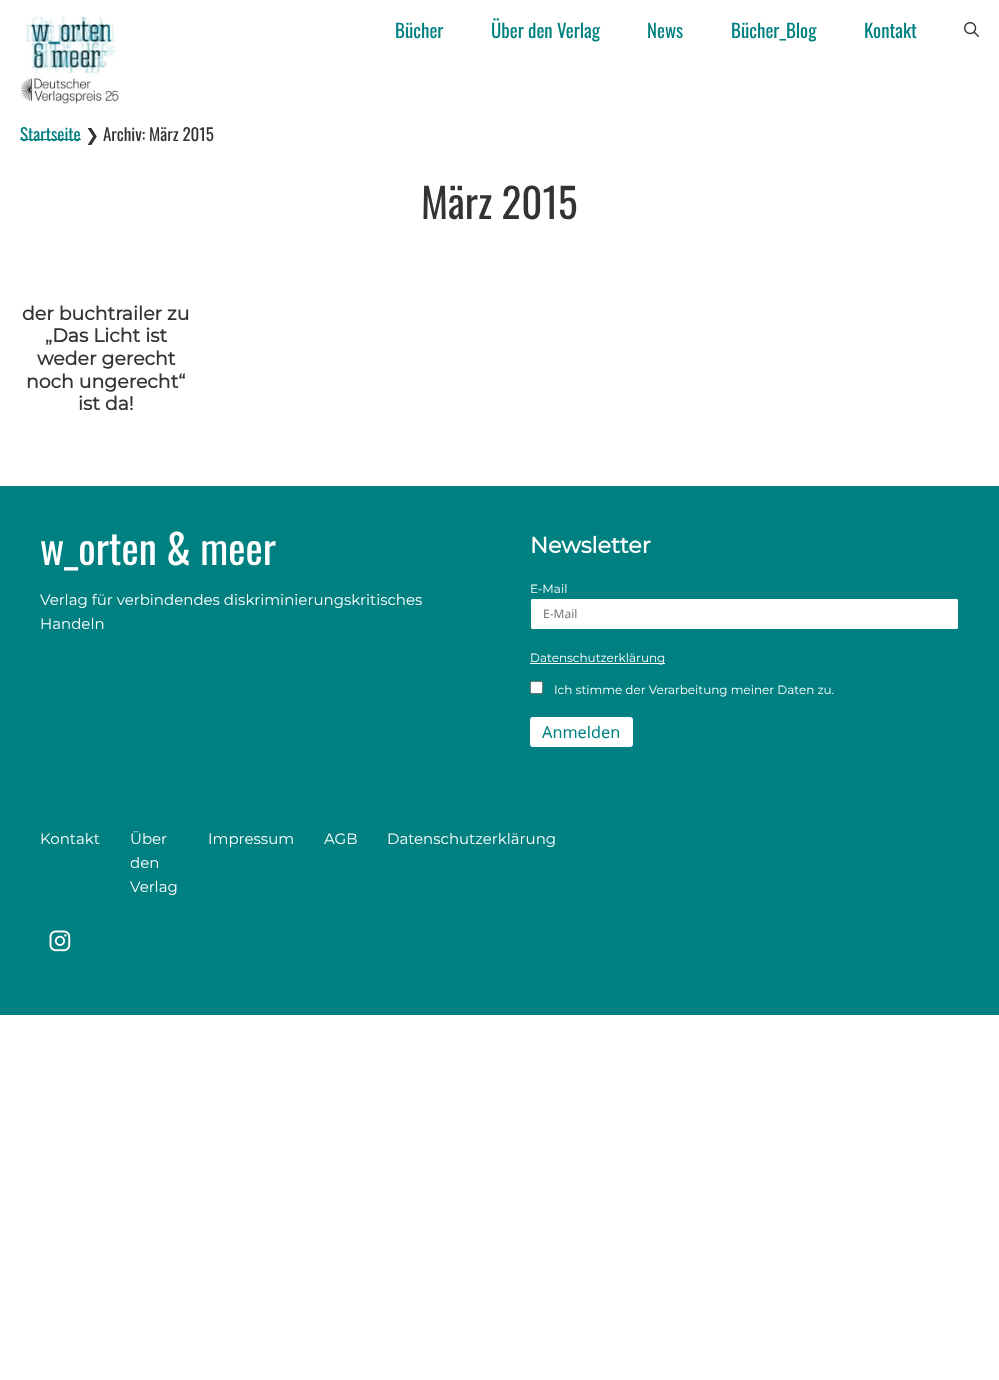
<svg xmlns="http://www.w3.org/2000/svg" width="999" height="1380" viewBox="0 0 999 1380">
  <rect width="100%" height="100%" fill="#fff"/>
  <image x="20" y="16" width="100" height="88" href="img/1.png"/>
  <image x="964" y="22" width="15" height="15" href="img/2.png"/>
  <path d="M20 139h61v1H20z" fill="#008080"/>
  <path d="M0 486h999v529H0z" fill="#008080"/>
  <rect x="530.5" y="598.5" width="428" height="31" rx="2" fill="#fff" stroke="#008080"/>
  <path d="M530 663h135v1H530z" fill="#fff"/>
  <rect x="530.5" y="681.5" width="12" height="12" rx="1.5" fill="#fff" stroke="#767676"/>
  <rect x="531" y="718" width="101" height="28" rx="2" fill="#fff" stroke="#fff" stroke-width="2"/>
  <image x="49" y="930" width="22" height="22" href="img/3.png"/>
  <g font-family="Oswald" font-size="18.9" fill="#008080">
    <text x="395" y="38">Bücher</text>
    <text x="491" y="38">Über den Verlag</text>
    <text x="647" y="38">News</text>
    <text x="731" y="38">Bücher_Blog</text>
    <text x="864" y="38">Kontakt</text>
  </g>
  <text x="20" y="141" font-family="Oswald" font-size="17" fill="#008080">Startseite</text>
  <text x="85" y="141" font-family="DejaVu Sans" font-size="17" fill="#333">❯</text>
  <text x="103" y="141" font-family="Oswald" font-size="17" fill="#333">Archiv: März 2015</text>
  <text x="421" y="219" font-family="Oswald" font-size="41" fill="#333">März 2015</text>
  <g font-family="Montserrat" font-size="18.9" font-weight="bold" fill="#333">
    <text x="22" y="320">der buchtrailer zu</text>
    <text x="45" y="342">„Das Licht ist</text>
    <text x="37" y="365">weder gerecht</text>
    <text x="26" y="388">noch ungerecht“</text>
    <text x="78" y="410">ist da!</text>
  </g>
  <text x="40" y="565" font-family="Oswald" font-size="41" fill="#fff">w_orten &amp; meer</text>
  <g font-family="Montserrat" font-size="15" font-weight="100" fill="#fff">
    <text x="40" y="605">Verlag für verbindendes diskriminierungskritisches</text>
    <text x="40" y="629">Handeln</text>
  </g>
  <text x="530" y="553" font-family="Montserrat" font-size="22.25" font-weight="bold" fill="#fff">Newsletter</text>
  <text x="530" y="593" font-family="Montserrat" font-size="12" font-weight="100" fill="#fff">E-Mail</text>
  <text x="543" y="618" font-family="Noto Sans" font-size="12" fill="#757575">E-Mail</text>
  <g font-family="Montserrat" font-size="12" font-weight="100" fill="#fff">
    <text x="530" y="662">Datenschutzerklärung</text>
    <text x="554" y="694">Ich stimme der Verarbeitung meiner Daten zu.</text>
  </g>
  <text x="542" y="738" font-family="Noto Sans" font-size="16.25" fill="#008080">Anmelden</text>
  <g font-family="Montserrat" font-size="15" font-weight="100" fill="#fff">
    <text x="40" y="844">Kontakt</text>
    <text x="130" y="844">Über</text>
    <text x="130" y="868">den</text>
    <text x="130" y="892">Verlag</text>
    <text x="208" y="844">Impressum</text>
    <text x="324" y="844">AGB</text>
    <text x="387" y="844">Datenschutzerklärung</text>
  </g>
</svg>
